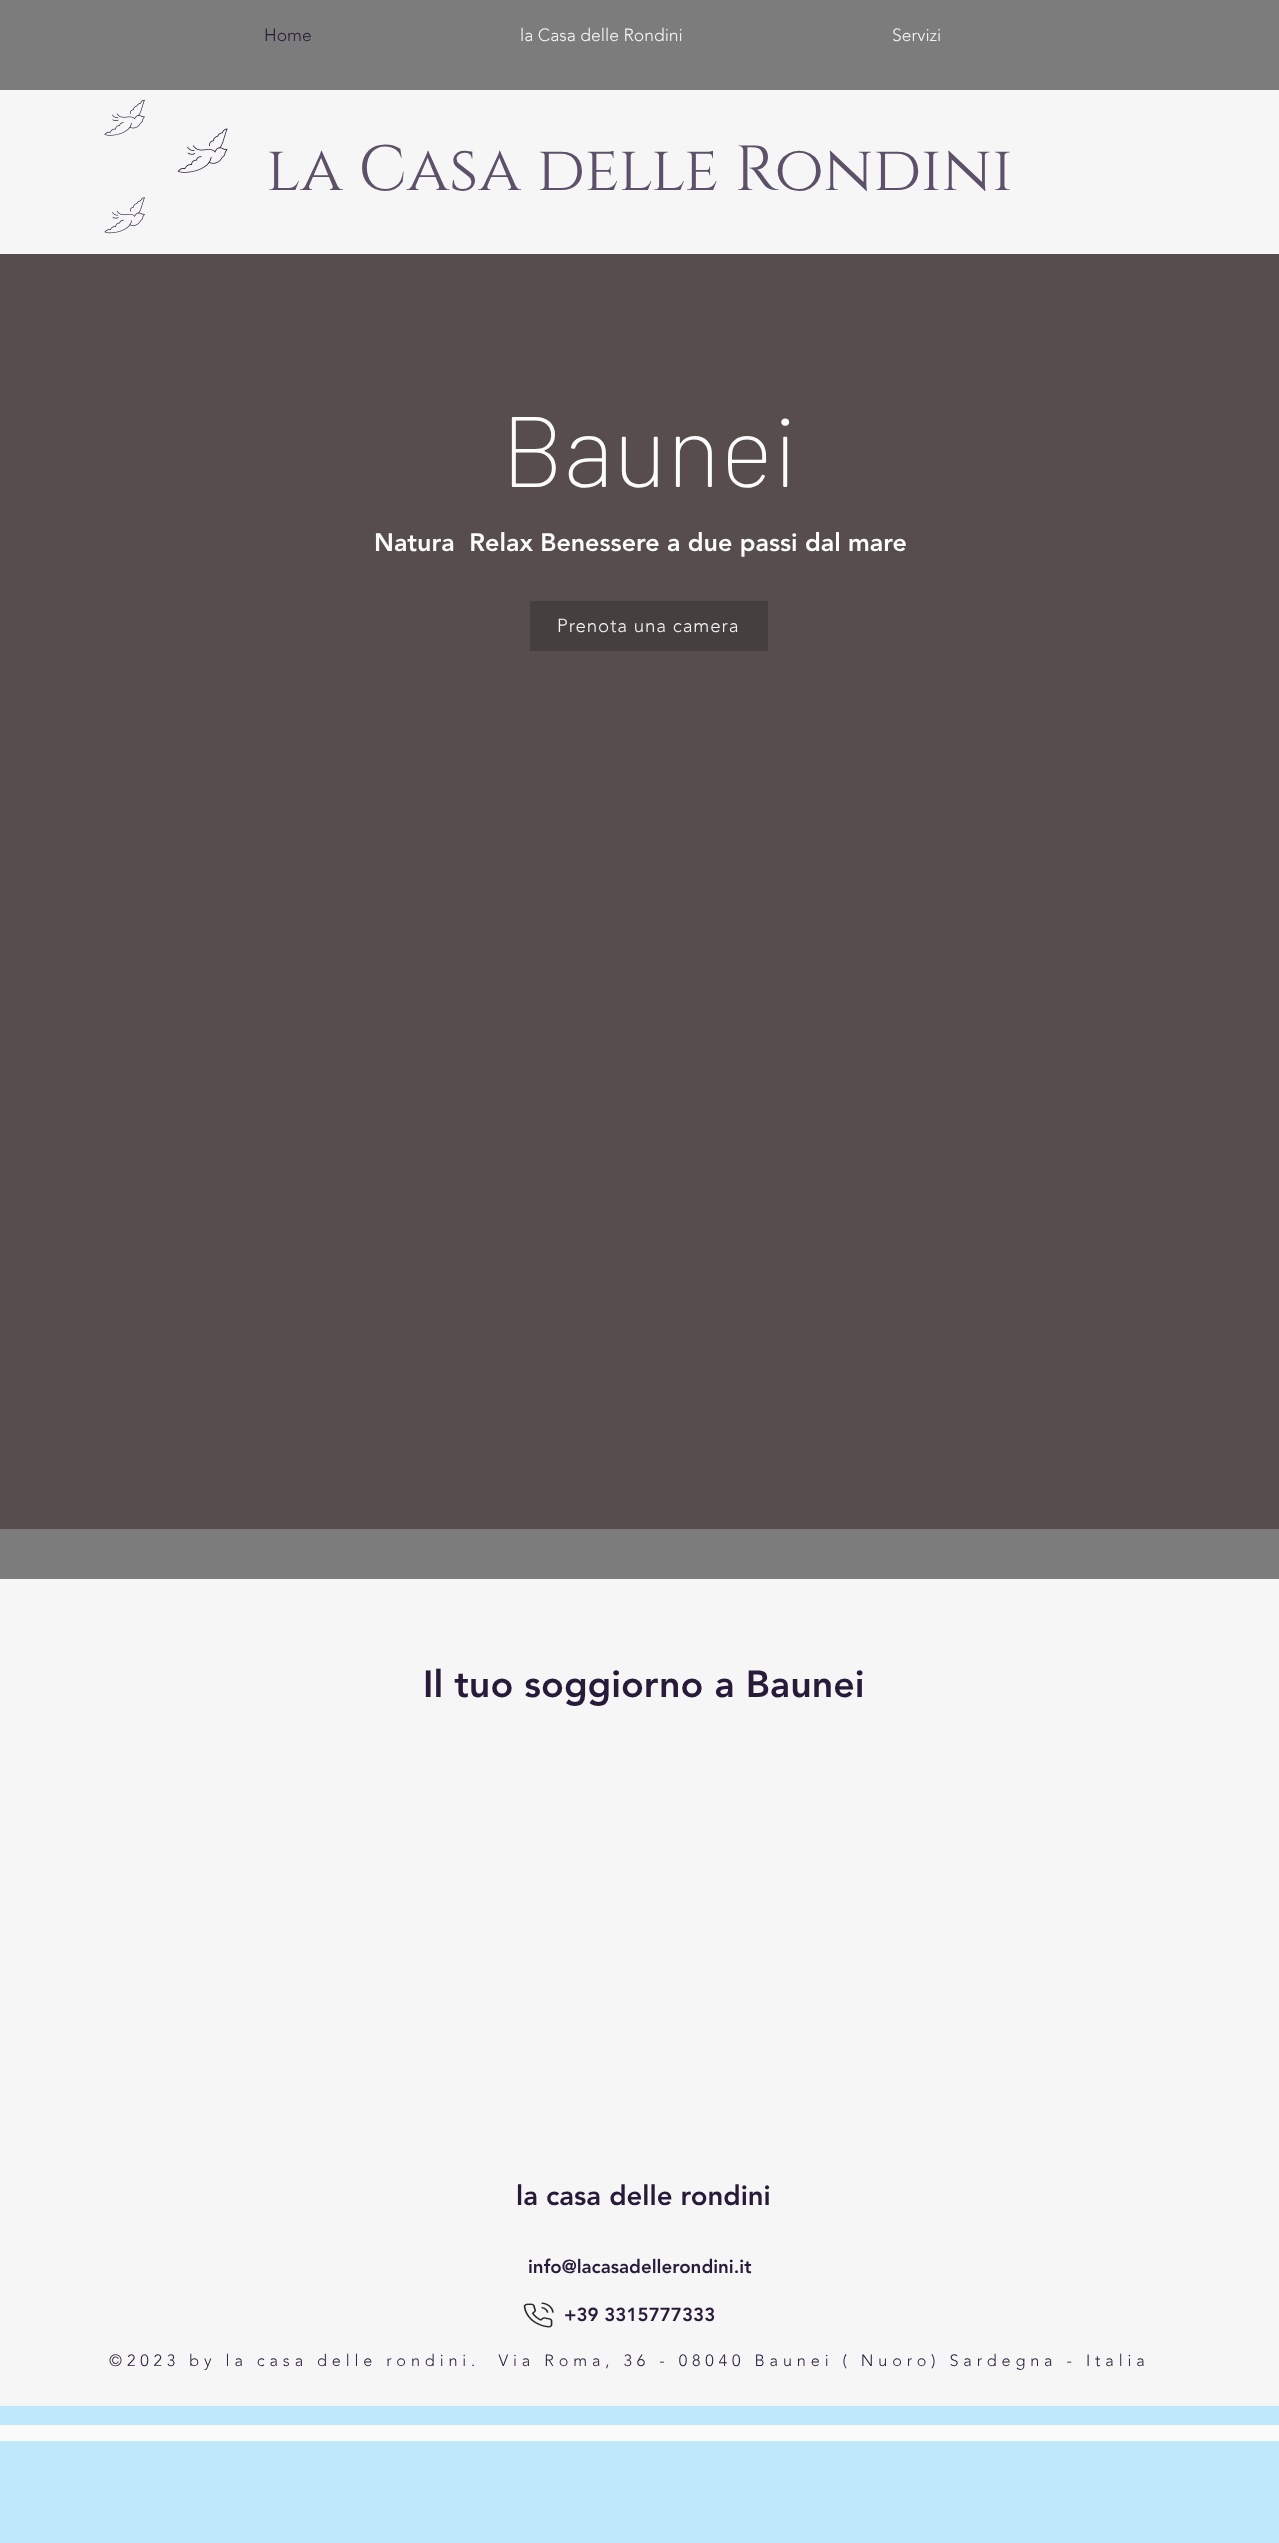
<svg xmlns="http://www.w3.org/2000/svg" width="1279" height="2543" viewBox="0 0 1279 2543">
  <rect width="100%" height="100%" fill="#bde9fb"/>
  <path d="M0 0h1279v90H0z" fill="#7c7c7c"/>
  <path d="M0 90h1279v164H0z" fill="#f6f6f6"/>
  <image x="104" y="99" width="41" height="37" href="img/1.png"/>
  <image x="177" y="128" width="51" height="45" href="img/2.png"/>
  <image x="104" y="197" width="41" height="37" href="img/3.png"/>
  <path d="M0 254h1279v1275H0z" fill="#574d4d"/>
  <path d="M530 601h238v50H530z" fill="#463f3f"/>
  <path d="M0 1529h1279v50H0z" fill="#7c7c7c"/>
  <path d="M0 1579h1279v827H0z" fill="#f6f6f6"/>
  <path d="M0 2425h1279v16H0z" fill="#fafafa"/>
  <image x="523" y="2302" width="31" height="26" href="img/4.png"/>
  <text x="264" y="41" font-family="'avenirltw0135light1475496'" font-size="17.5" font-weight="300" fill="#281a39">Home</text>
  <g font-family="'avenirltw0135light1475496'" font-size="17.5" font-weight="300" fill="#f6f6f6">
    <text x="520" y="41">la Casa delle Rondini</text>
    <text x="892" y="41">Servizi</text>
  </g>
  <text x="266" y="190" font-family="Cinzel" font-size="63.75" fill="#5c5168">la Casa delle Rondini</text>
  <text x="501" y="487" font-family="Barlow" font-size="100" font-weight="200" fill="#fcfcfc">Baunei</text>
  <text x="374" y="551" font-family="'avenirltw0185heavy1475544'" font-size="25" font-weight="900" fill="#fcfcfc" xml:space="preserve">Natura  Relax Benessere a due passi dal mare</text>
  <text x="557" y="632" font-family="'avenirltw0135light1475496'" font-size="18.75" font-weight="300" letter-spacing="0.9" fill="#f6f6f6">Prenota una camera</text>
  <text x="423" y="1697" font-family="'avenirltw0185heavy1475544'" font-size="37.5" font-weight="900" fill="#281a39">Il tuo soggiorno a Baunei</text>
  <text x="516" y="2205" font-family="'avenirltw0185heavy1475544'" font-size="27.5" font-weight="900" fill="#281a39">la casa delle rondini</text>
  <g font-family="'avenirltw0185heavy1475544'" font-size="18.75" font-weight="900" fill="#281a39">
    <text x="528" y="2273">info@lacasadellerondini.it</text>
    <text x="564" y="2321">+39 3315777333</text>
  </g>
  <text x="109" y="2366" font-family="'avenirltw0135light1475496'" font-size="16.25" font-weight="300" letter-spacing="4.88" fill="#281a39" xml:space="preserve">©2023 by la casa delle rondini.  Via Roma, 36 - 08040 Baunei ( Nuoro) Sardegna - Italia</text>
</svg>
